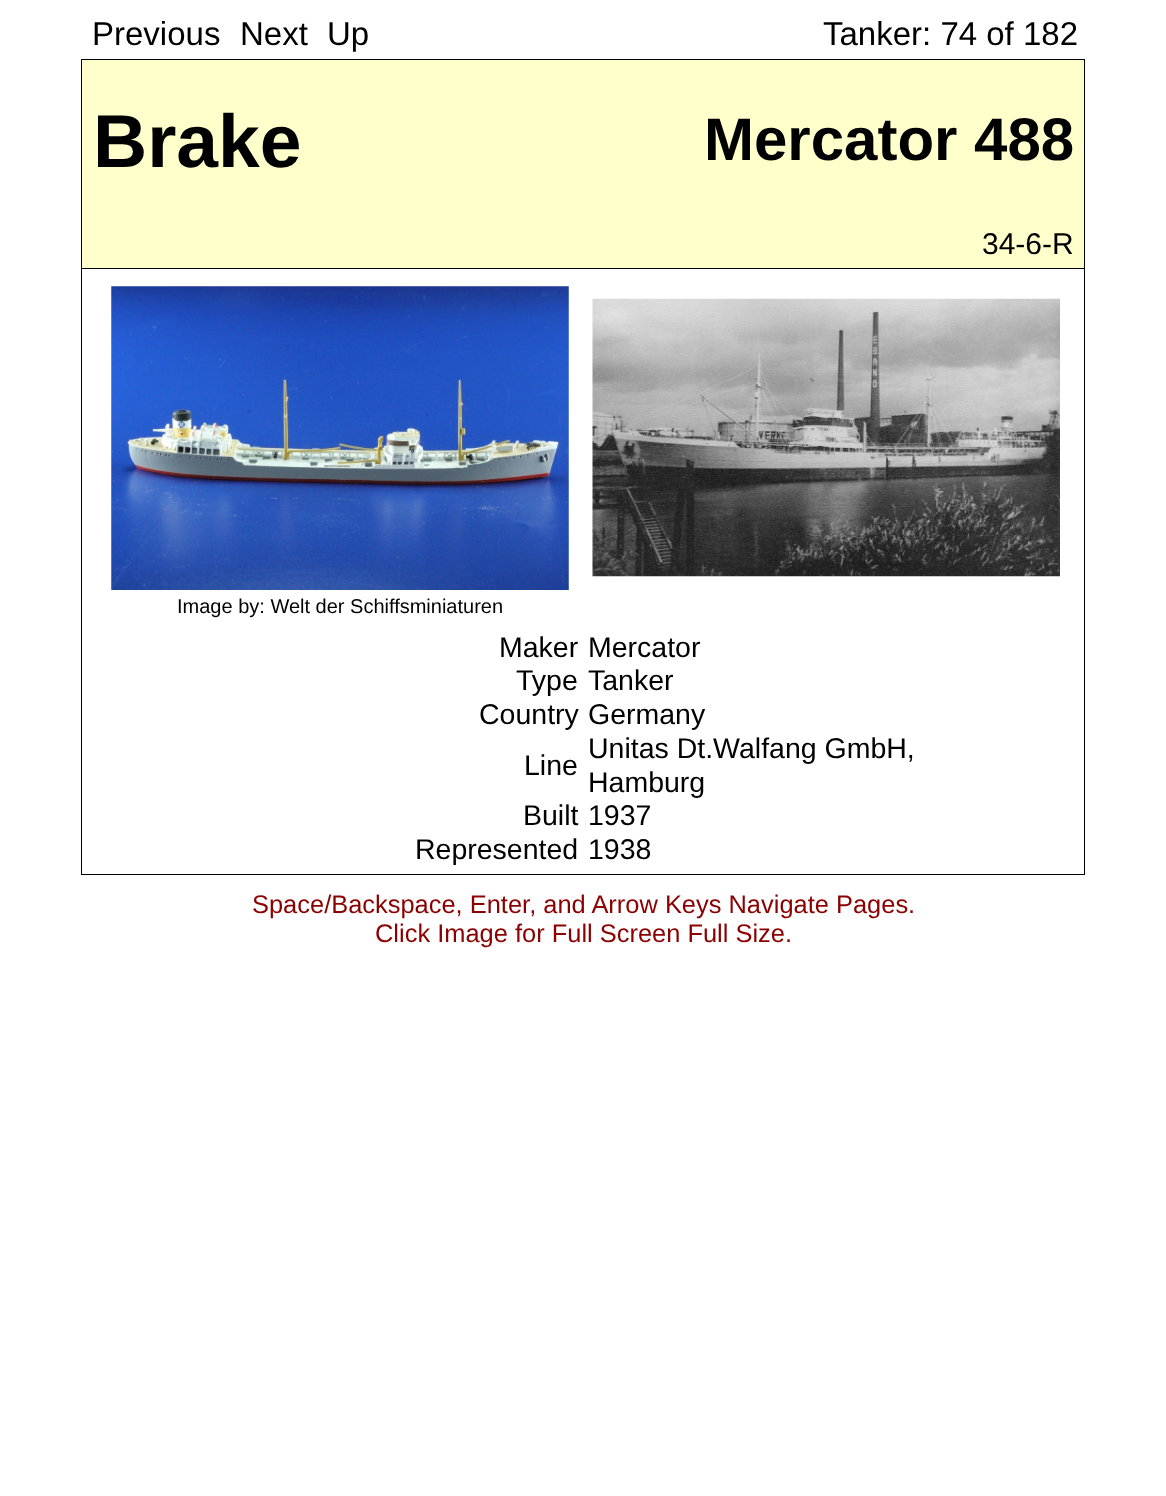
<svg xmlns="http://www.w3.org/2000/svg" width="1166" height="1496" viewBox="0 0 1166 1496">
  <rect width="100%" height="100%" fill="#fff"/>
  <path d="M82 60h1002v119H82z" fill="#ffc"/>
  <path d="M81 59h1004v1H81z" fill="#000"/>
  <path d="M81 59h1v120H81z" fill="#000"/>
  <path d="M1084 59h1v210H1084z" fill="#000"/>
  <path d="M82 179h1002v89H82z" fill="#ffc"/>
  <path d="M81 268h1004v1H81z" fill="#000"/>
  <path d="M81 179h1v90H81z" fill="#000"/>
  <path d="M1084 269h1v606H1084z" fill="#000"/>
  <path d="M81 269h1v360H81z" fill="#000"/>
  <image x="592" y="298" width="468" height="279" href="img/1.png"/>
  <image x="111" y="286" width="458" height="304" href="img/2.png"/>
  <path d="M81 874h1004v1H81z" fill="#000"/>
  <path d="M81 629h1v246H81z" fill="#000"/>
  <g font-family="Liberation Sans" font-size="33" fill="#000">
    <text x="92" y="45">Previous</text>
    <text x="240" y="45">Next</text>
    <text x="327" y="45">Up</text>
    <text x="823" y="45">Tanker: 74 of 182</text>
  </g>
  <text x="93" y="167" font-family="Liberation Sans" font-size="75" font-weight="bold" fill="#000">Brake</text>
  <text x="704" y="160" font-family="Liberation Sans" font-size="60" font-weight="bold" fill="#000">Mercator 488</text>
  <text x="982" y="254" font-family="Liberation Sans" font-size="30" fill="#000">34-6-R</text>
  <text x="177" y="613" font-family="Liberation Sans" font-size="20" fill="#000">Image by: Welt der Schiffsminiaturen</text>
  <g font-family="Liberation Sans" font-size="28.5" fill="#000">
    <text x="499" y="657">Maker</text>
    <text x="588" y="657">Mercator</text>
    <text x="516" y="690">Type</text>
    <text x="588" y="690">Tanker</text>
    <text x="479" y="724">Country</text>
    <text x="588" y="724">Germany</text>
    <text x="524" y="775">Line</text>
    <text x="588" y="758">Unitas Dt.Walfang GmbH,</text>
    <text x="588" y="792">Hamburg</text>
    <text x="523" y="825">Built</text>
    <text x="588" y="825">1937</text>
    <text x="415" y="859">Represented</text>
    <text x="588" y="859">1938</text>
  </g>
  <g font-family="Liberation Sans" font-size="25.45" fill="#8b0000">
    <text x="252" y="913">Space/Backspace, Enter, and Arrow Keys Navigate Pages.</text>
    <text x="375" y="942">Click Image for Full Screen Full Size.</text>
  </g>
</svg>
